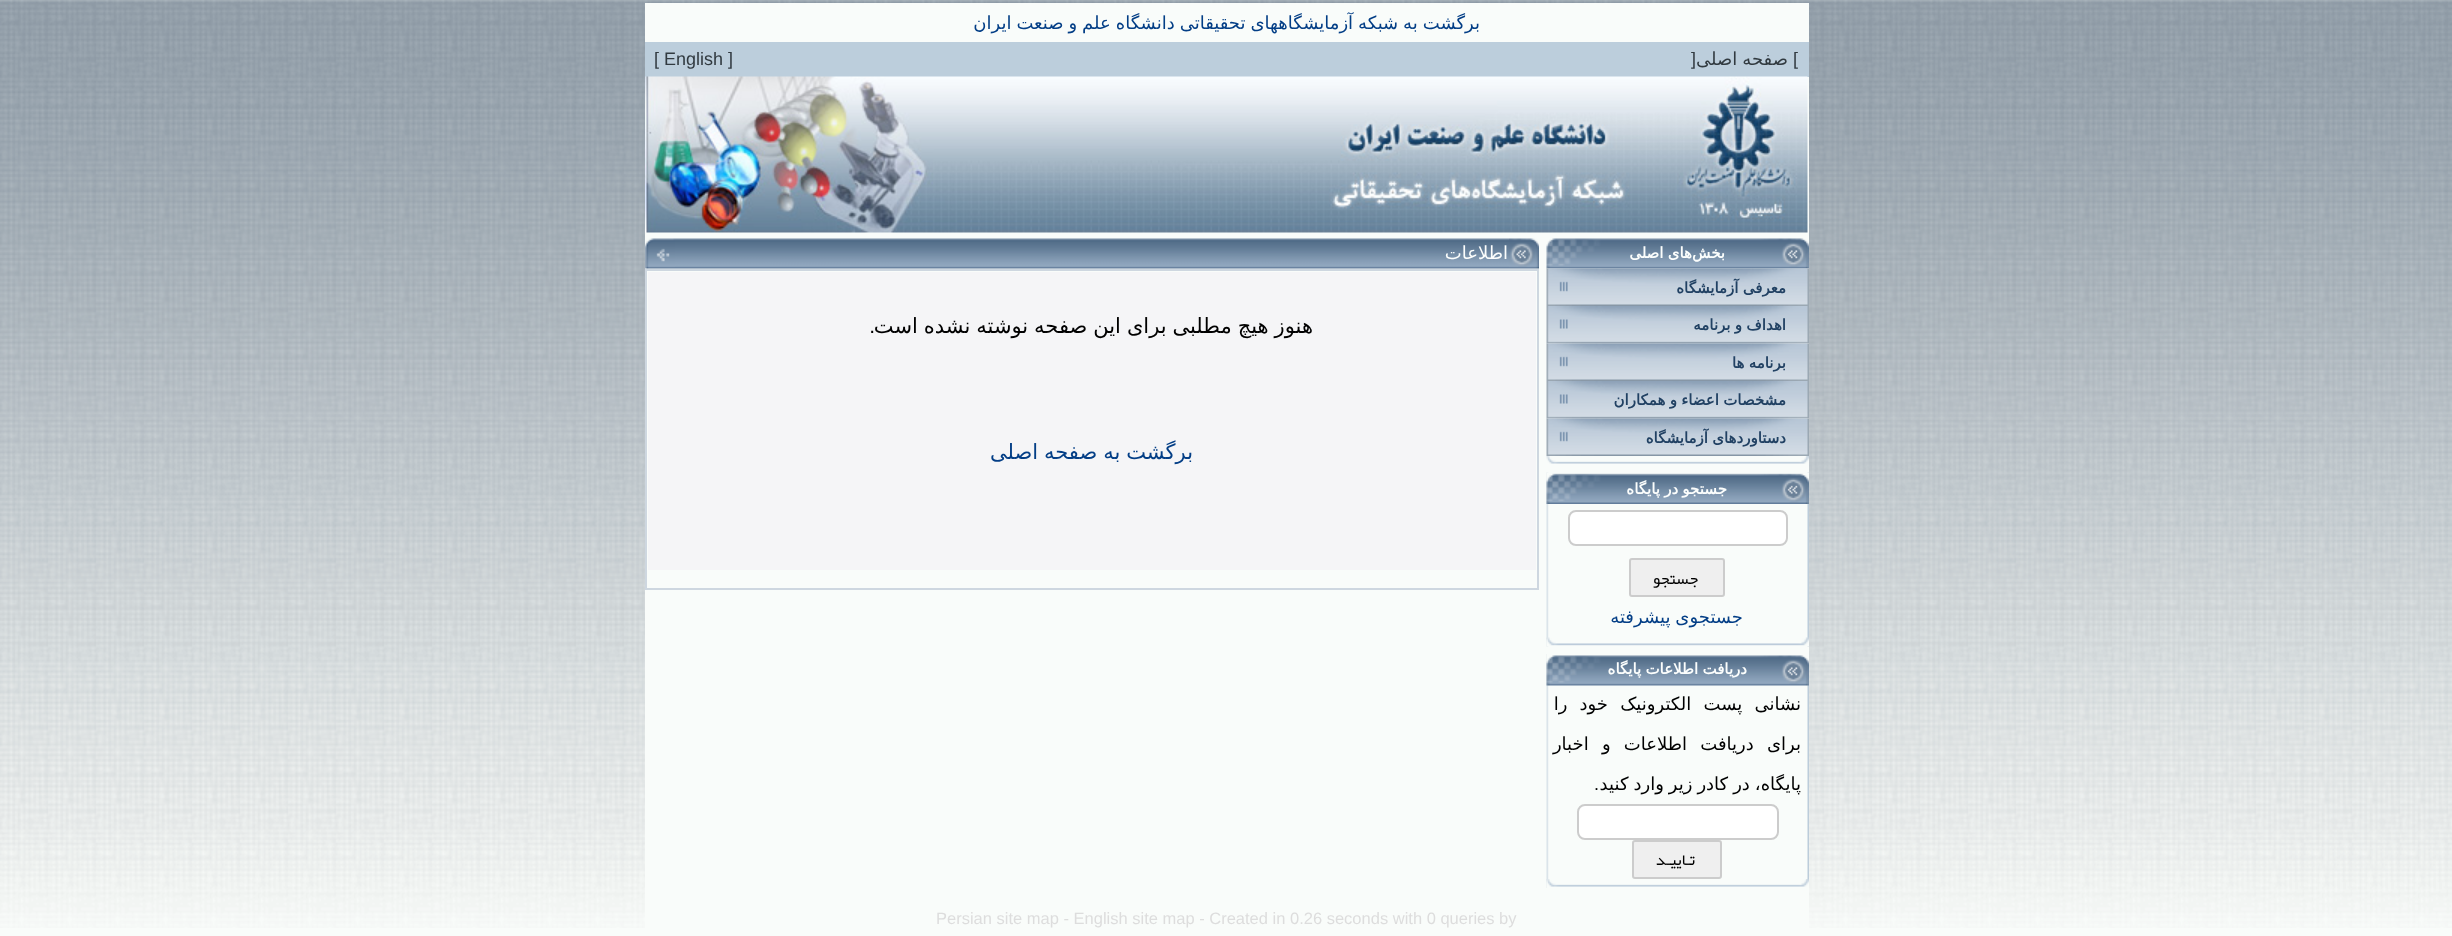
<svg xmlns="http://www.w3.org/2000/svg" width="2452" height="936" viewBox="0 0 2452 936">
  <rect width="100%" height="100%" fill="#f9fcfa"/>
  <image x="0" y="0" width="2452" height="928" href="img/1.png"/>
  <path d="M645 3h1164v925H645z" fill="#f9fcfa"/>
  <path d="M645 42h1164v35H645z" fill="#bccedc"/>
  <image x="645" y="76" width="1163" height="157" href="img/2.png"/>
  <image x="1546" y="238" width="263" height="31" href="img/3.png"/>
  <image x="1546" y="268" width="263" height="38" href="img/4.png"/>
  <image x="1546" y="306" width="263" height="38" href="img/5.png"/>
  <image x="1546" y="343" width="263" height="38" href="img/6.png"/>
  <image x="1546" y="381" width="263" height="38" href="img/5.png"/>
  <image x="1546" y="418" width="263" height="38" href="img/6.png"/>
  <image x="1546" y="456" width="263" height="8" href="img/7.png"/>
  <image x="1546" y="472" width="263" height="175" href="img/8.png"/>
  <image x="1546" y="472" width="263" height="32" href="img/9.png"/>
  <rect x="1569" y="511" width="218" height="34" rx="7" fill="#fff" stroke="#ccc" stroke-width="2"/>
  <rect x="1630" y="559" width="94" height="37" rx="2" fill="#efefef" stroke="#ccc" stroke-width="2"/>
  <image x="1546" y="637" width="263" height="10" href="img/10.png"/>
  <image x="1546" y="654" width="263" height="234" href="img/11.png"/>
  <image x="1546" y="654" width="263" height="32" href="img/12.png"/>
  <rect x="1578" y="805" width="200" height="34" rx="7" fill="#fff" stroke="#ccc" stroke-width="2"/>
  <rect x="1633" y="841" width="88" height="37" rx="2" fill="#efefef" stroke="#ccc" stroke-width="2"/>
  <image x="1546" y="879" width="263" height="9" href="img/13.png"/>
  <image x="1509" y="238" width="30" height="31" href="img/14.png"/>
  <image x="675" y="238" width="834" height="31" href="img/15.png"/>
  <image x="645" y="238" width="30" height="31" href="img/16.png"/>
  <path d="M646 270h892v319H646z" fill="none" stroke="#ced7e0" stroke-width="2"/>
  <path d="M648 272h888v298H648z" fill="#f5f5f7"/>
  <text x="1480" y="29" word-spacing="-0.75" font-family="DejaVu Sans" font-size="18" direction="rtl" fill="#033e86">برگشت به شبکه آزمایشگاههای تحقیقاتی دانشگاه علم و صنعت ایران</text>
  <text x="1793" y="65" font-family="Liberation Sans" font-size="18" fill="#313a40">[</text>
  <text x="1788" y="65" word-spacing="-0.75" font-family="DejaVu Sans" font-size="18" direction="rtl" fill="#313a40">صفحه اصلی</text>
  <g font-family="Liberation Sans" font-size="18" fill="#313a40">
    <text x="1691" y="65">]</text>
    <text x="654" y="65">[ English ]</text>
  </g>
  <g font-family="DejaVu Sans" font-size="15" font-weight="bold" direction="rtl" fill="#fcfefd">
    <text x="1725" y="258">بخش</text>
    <text x="1692" y="258" word-spacing="-0.5">های اصلی</text>
  </g>
  <g font-family="DejaVu Sans" font-size="15" font-weight="bold" direction="rtl" fill="#214163">
    <text x="1786" y="293" word-spacing="-0.5">معرفی آزمایشگاه</text>
    <text x="1786" y="330" word-spacing="-0.5">اهداف و برنامه</text>
    <text x="1786" y="368" word-spacing="-0.5">برنامه ها</text>
    <text x="1786" y="405" word-spacing="-0.5">مشخصات اعضاء و همکاران</text>
    <text x="1786" y="443" word-spacing="-0.5">دستاوردهای آزمایشگاه</text>
  </g>
  <text x="1727" y="494" word-spacing="-0.5" font-family="DejaVu Sans" font-size="15" font-weight="bold" direction="rtl" fill="#fcfefd">جستجو در پایگاه</text>
  <text x="1698" y="584" font-family="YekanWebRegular" font-size="16.5" direction="rtl" fill="#000">جستجو</text>
  <text x="1743" y="623" word-spacing="-0.75" font-family="DejaVu Sans" font-size="18" direction="rtl" fill="#033e86">جستجوی پیشرفته</text>
  <text x="1747" y="674" word-spacing="-0.5" font-family="DejaVu Sans" font-size="15" font-weight="bold" direction="rtl" fill="#fcfefd">دریافت اطلاعات پایگاه</text>
  <g font-family="DejaVu Sans" font-size="18" direction="rtl" fill="#000">
    <text x="1801" y="710" word-spacing="6.5">نشانی پست الکترونیک خود را</text>
    <text x="1801" y="750" word-spacing="7.5">برای دریافت اطلاعات و اخبار</text>
    <text x="1801" y="790" word-spacing="-0.75">پایگاه، در کادر زیر وارد کنید</text>
  </g>
  <text x="1599" y="790" font-family="Liberation Sans" font-size="18" direction="rtl" fill="#000">.</text>
  <text x="1695" y="865" font-family="YekanWebRegular" font-size="16.5" direction="rtl" fill="#000">تـاییـد</text>
  <text x="1508" y="259" font-family="DejaVu Sans" font-size="18" direction="rtl" fill="#fcfefd">اطلاعات</text>
  <text x="1313" y="333" word-spacing="-0.75" font-family="DejaVu Sans" font-size="21" direction="rtl" fill="#000">هنوز هیچ مطلبی برای این صفحه نوشته نشده است</text>
  <text x="875" y="333" font-family="Liberation Sans" font-size="21" direction="rtl" fill="#000">.</text>
  <text x="1193" y="459" word-spacing="-0.75" font-family="DejaVu Sans" font-size="21" direction="rtl" fill="#033e86">برگشت به صفحه اصلی</text>
  <text x="936" y="924" font-family="Liberation Sans" font-size="16.5" fill="#ddd">Persian site map - English site map - Created in 0.26 seconds with 0 queries by</text>
</svg>
